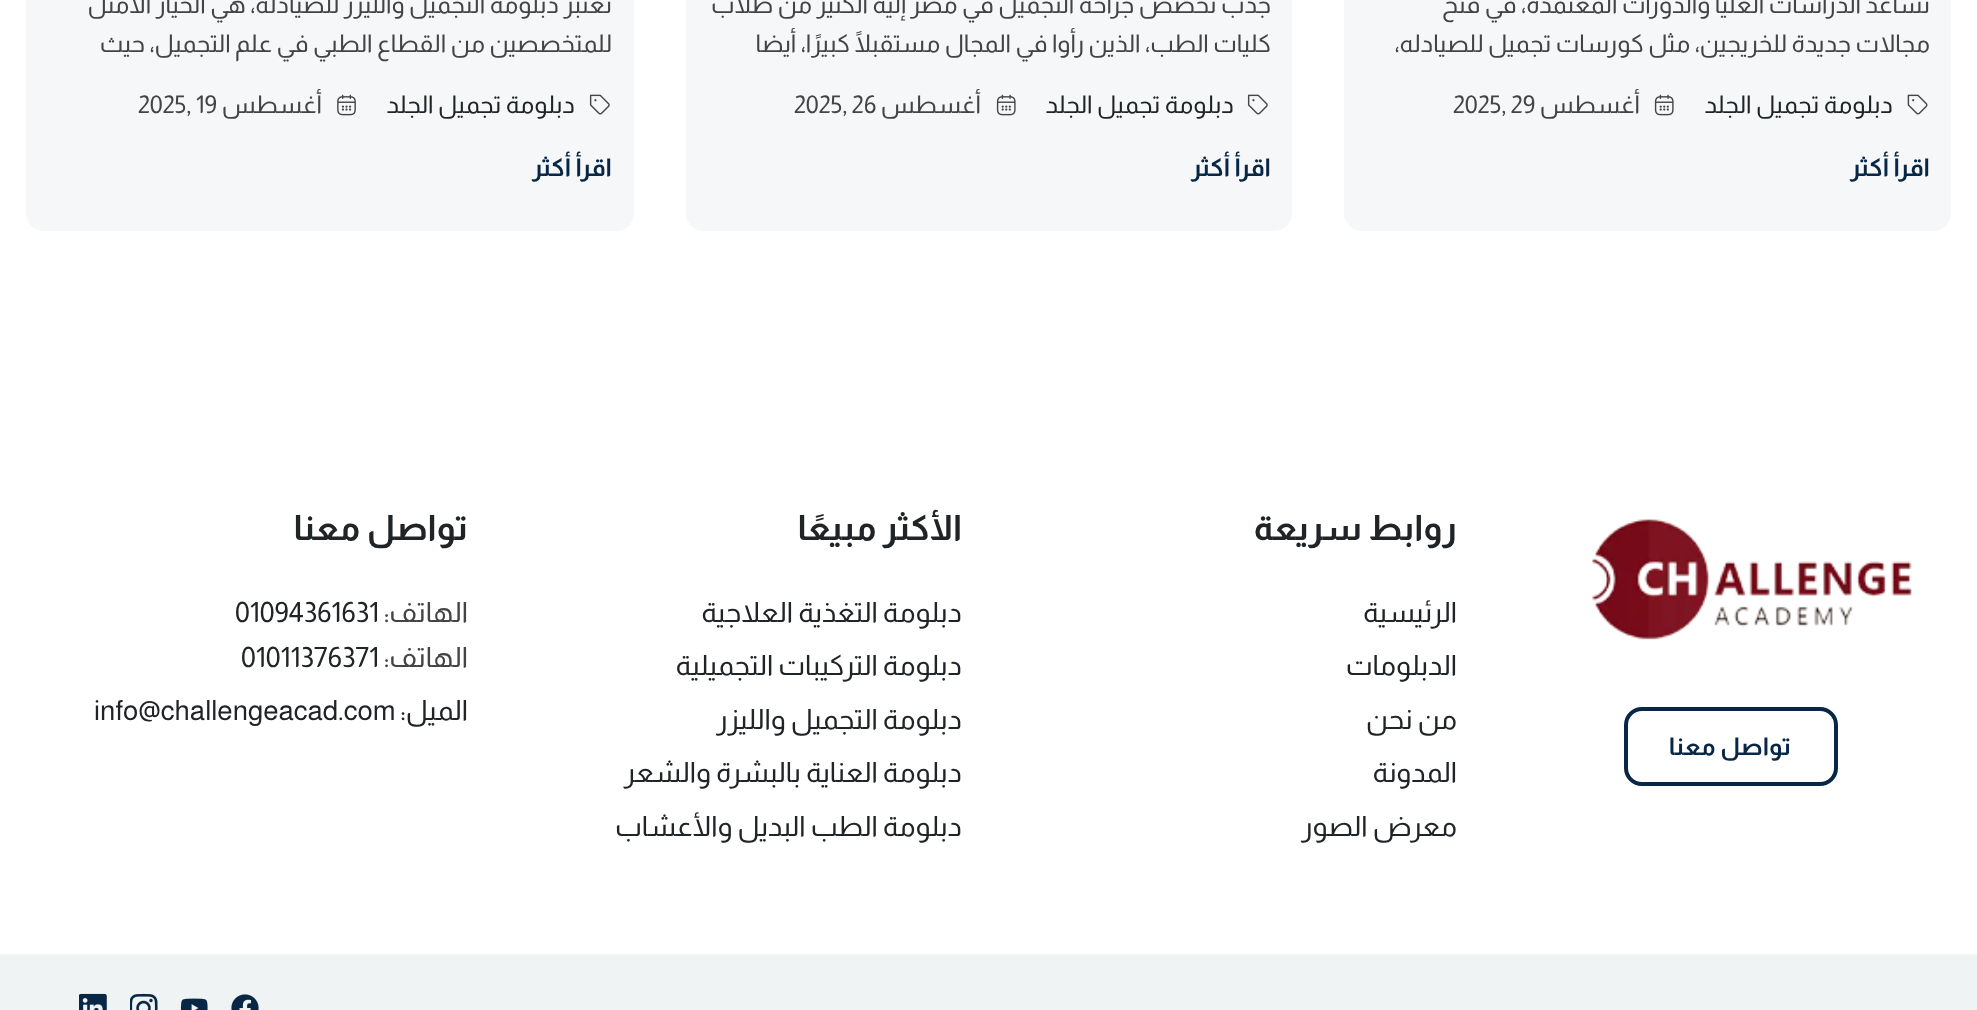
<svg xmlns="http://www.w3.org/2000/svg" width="1977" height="1010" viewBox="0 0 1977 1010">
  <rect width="100%" height="100%" fill="#fff"/>
  <rect x="1344" y="-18" width="607" height="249" rx="18" fill="#f5f7f8"/>
  <image x="1907" y="94" width="21" height="21" href="img/1.png"/>
  <image x="1654" y="94" width="20" height="22" href="img/2.png"/>
  <rect x="686" y="-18" width="606" height="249" rx="18" fill="#f5f7f8"/>
  <image x="1247" y="94" width="21" height="21" href="img/3.png"/>
  <image x="996" y="94" width="20" height="22" href="img/2.png"/>
  <rect x="26" y="-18" width="608" height="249" rx="18" fill="#f5f7f8"/>
  <image x="589" y="94" width="21" height="21" href="img/3.png"/>
  <image x="337" y="94" width="19" height="22" href="img/4.png"/>
  <image x="1592" y="519" width="320" height="121" href="img/5.png"/>
  <rect x="1626" y="709" width="210" height="75" rx="16" fill="none" stroke="#082645" stroke-width="4"/>
  <path d="M0 956h1977v54H0z" fill="#eff3f4"/>
  <path d="M0 954h1977v2H0z" fill="#f1f5f6"/>
  <image x="231" y="994" width="28" height="16" href="img/6.png"/>
  <image x="180" y="998" width="28" height="12" href="img/7.png"/>
  <image x="130" y="993" width="28" height="17" href="img/8.png"/>
  <image x="79" y="993" width="28" height="17" href="img/9.png"/>
  <g font-family="Almarai" font-size="24.5" direction="rtl" fill="#444">
    <text x="1930" y="13">تساعد الدراسات العليا والدورات المعتمدة، في فتح</text>
    <text x="1930" y="52">مجالات جديدة للخريجين، مثل كورسات تجميل للصيادله،</text>
  </g>
  <text x="1893" y="113" font-family="Almarai" font-size="24.5" direction="rtl" fill="#212427">دبلومة تجميل الجلد</text>
  <text x="1640" y="113" font-family="Almarai" font-size="24.5" direction="rtl" fill="#444">أغسطس</text>
  <text x="1453" y="113" font-family="Almarai" font-size="24.5" fill="#444">2025, 29</text>
  <text x="1930" y="176" font-family="Almarai" font-size="24.5" font-weight="bold" direction="rtl" fill="#082645">اقرأ أكثر</text>
  <g font-family="Almarai" font-size="24.5" direction="rtl" fill="#444">
    <text x="1271" y="13">جذب تخصص جراحة التجميل في مصر إليه الكثير من طلاب</text>
    <text x="1271" y="52">كليات الطب، الذين رأوا في المجال مستقبلًا كبيرًا، أيضا</text>
  </g>
  <text x="1234" y="113" font-family="Almarai" font-size="24.5" direction="rtl" fill="#212427">دبلومة تجميل الجلد</text>
  <text x="981" y="113" font-family="Almarai" font-size="24.5" direction="rtl" fill="#444">أغسطس</text>
  <text x="794" y="113" font-family="Almarai" font-size="24.5" fill="#444">2025, 26</text>
  <text x="1271" y="176" font-family="Almarai" font-size="24.5" font-weight="bold" direction="rtl" fill="#082645">اقرأ أكثر</text>
  <g font-family="Almarai" font-size="24.5" direction="rtl" fill="#444">
    <text x="612" y="13">تعتبر دبلومة التجميل والليزر للصيادلة، هي الخيار الأمثل</text>
    <text x="612" y="52">للمتخصصين من القطاع الطبي في علم التجميل، حيث</text>
  </g>
  <text x="575" y="113" font-family="Almarai" font-size="24.5" direction="rtl" fill="#212427">دبلومة تجميل الجلد</text>
  <text x="322" y="113" font-family="Almarai" font-size="24.5" direction="rtl" fill="#444">أغسطس</text>
  <text x="138" y="113" font-family="Almarai" font-size="24.5" fill="#444">2025, 19</text>
  <g font-family="Almarai" font-size="24.5" font-weight="bold" direction="rtl" fill="#082645">
    <text x="612" y="176">اقرأ أكثر</text>
    <text x="1791" y="755">تواصل معنا</text>
  </g>
  <text x="1457" y="540" font-family="Almarai" font-size="35" font-weight="bold" direction="rtl" fill="#212427">روابط سريعة</text>
  <g font-family="Almarai" font-size="28" direction="rtl" fill="#212427">
    <text x="1457" y="622">الرئيسية</text>
    <text x="1457" y="675">الدبلومات</text>
    <text x="1457" y="729">من نحن</text>
    <text x="1457" y="782">المدونة</text>
    <text x="1457" y="836">معرض الصور</text>
  </g>
  <text x="962" y="540" font-family="Almarai" font-size="35" font-weight="bold" direction="rtl" fill="#212427">الأكثر مبيعًا</text>
  <g font-family="Almarai" font-size="28" direction="rtl" fill="#212427">
    <text x="962" y="622">دبلومة التغذية العلاجية</text>
    <text x="962" y="675">دبلومة التركيبات التجميلية</text>
    <text x="962" y="729">دبلومة التجميل والليزر</text>
    <text x="962" y="782">دبلومة العناية بالبشرة والشعر</text>
    <text x="962" y="836">دبلومة الطب البديل والأعشاب</text>
  </g>
  <text x="468" y="540" font-family="Almarai" font-size="35" font-weight="bold" direction="rtl" fill="#212427">تواصل معنا</text>
  <text x="468" y="622" font-family="Almarai" font-size="28" direction="rtl" fill="#444">الهاتف:</text>
  <text x="235" y="622" font-family="Almarai" font-size="28" fill="#212427">01094361631</text>
  <text x="468" y="667" font-family="Almarai" font-size="28" direction="rtl" fill="#444">الهاتف:</text>
  <text x="241" y="667" font-family="Almarai" font-size="28" fill="#212427">01011376371</text>
  <text x="468" y="720" font-family="Almarai" font-size="28" direction="rtl" fill="#212427">الميل:</text>
  <text x="94" y="720" font-family="Almarai" font-size="28" fill="#212427">info@challengeacad.com</text>
</svg>
